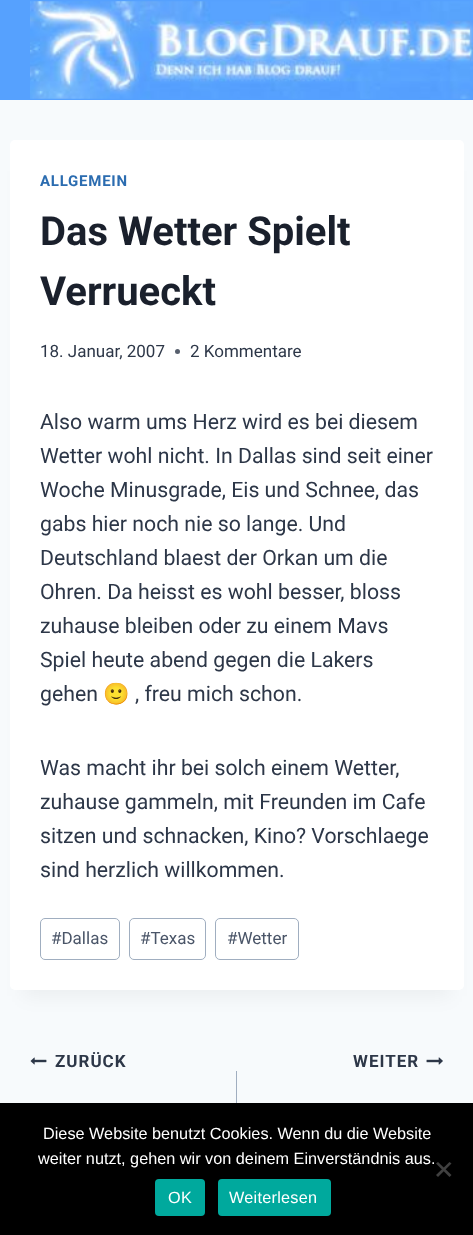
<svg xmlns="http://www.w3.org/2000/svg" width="473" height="1235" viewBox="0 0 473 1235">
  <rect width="100%" height="100%" fill="#f7fafc"/>
  <path d="M0 0h473v100H0z" fill="#56a1fe"/>
  <image x="30" y="1" width="443" height="98" href="img/1.png"/>
  <path d="M23 171h428v825H23z" fill="#0000000d" filter="blur(9.5px)"/>
  <rect x="10" y="140" width="454" height="850" rx="5" fill="#fff"/>
  <circle cx="177.5" cy="351.5" r="2.5" fill="#575f6d"/>
  <rect x="40.5" y="918.5" width="79" height="41" rx="4.5" fill="none" stroke="#a0aec0"/>
  <rect x="129.5" y="918.5" width="76" height="41" rx="4.5" fill="none" stroke="#a0aec0"/>
  <rect x="215.5" y="918.5" width="83" height="41" rx="4.5" fill="none" stroke="#a0aec0"/>
  <image x="30" y="1057" width="17" height="8" href="img/2.png"/>
  <path d="M236 1071h1v32H236z" fill="#a0aec0"/>
  <image x="426" y="1057" width="17" height="8" href="img/3.png"/>
  <path d="M0 1103h473v132H0z" fill="#000"/>
  <path d="M449.5 1162L451.5 1163.5L438 1177L436 1175Z" fill="#404040"/>
  <path d="M436 1163.5L438 1162L451.5 1175L449.5 1177Z" fill="#404040"/>
  <rect x="155" y="1179" width="50" height="37" rx="4" fill="#00a99d"/>
  <rect x="218" y="1179" width="113" height="37" rx="4" fill="#00a99d"/>
  <text x="40" y="186" font-family="Roboto" font-size="15" font-weight="bold" letter-spacing="0.75" fill="#2b6cb0">ALLGEMEIN</text>
  <g font-family="Roboto" font-size="40" font-weight="bold" fill="#1a202c">
    <text x="40" y="245">Das Wetter Spielt</text>
    <text x="40" y="305">Verrueckt</text>
  </g>
  <g font-family="Roboto" font-size="17" fill="#2d3748">
    <text x="40" y="357">18. Januar, 2007</text>
    <text x="190" y="357">2 Kommentare</text>
  </g>
  <g font-family="Roboto" font-size="21.25" fill="#2d3748">
    <text x="40" y="429">Also warm ums Herz wird es bei diesem</text>
    <text x="40" y="463">Wetter wohl nicht. In Dallas sind seit einer</text>
    <text x="40" y="497">Woche Minusgrade, Eis und Schnee, das</text>
    <text x="40" y="531">gabs hier noch nie so lange. Und</text>
    <text x="40" y="565">Deutschland blaest der Orkan um die</text>
    <text x="40" y="599">Ohren. Da heisst es wohl besser, bloss</text>
    <text x="40" y="633">zuhause bleiben oder zu einem Mavs</text>
    <text x="40" y="667">Spiel heute abend gegen die Lakers</text>
    <text x="40" y="701">gehen</text>
  </g>
  <text x="103" y="701" font-family="Noto Color Emoji" font-size="21.25" fill="#2d3748">🙂</text>
  <g font-family="Roboto" font-size="21.25" fill="#2d3748">
    <text x="135" y="701">, freu mich schon.</text>
    <text x="40" y="775">Was macht ihr bei solch einem Wetter,</text>
    <text x="40" y="809">zuhause gammeln, mit Freunden im Cafe</text>
    <text x="40" y="843">sitzen und schnacken, Kino? Vorschlaege</text>
    <text x="40" y="877">sind herzlich willkommen.</text>
  </g>
  <g font-family="Roboto" font-size="17" fill="#4a5568">
    <text x="51" y="944">#Dallas</text>
    <text x="140" y="944">#Texas</text>
    <text x="227" y="944">#Wetter</text>
  </g>
  <g font-family="Roboto" font-size="17" font-weight="bold" letter-spacing="1" fill="#2d3748">
    <text x="55" y="1067">ZURÜCK</text>
    <text x="353" y="1067">WEITER</text>
  </g>
  <g font-family="Liberation Sans" font-size="16.25" fill="#fff">
    <text x="43" y="1139">Diese Website benutzt Cookies. Wenn du die Website</text>
    <text x="38" y="1164">weiter nutzt, gehen wir von deinem Einverständnis aus.</text>
  </g>
  <g font-family="Liberation Sans" font-size="16.25" letter-spacing="0.25" fill="#fff">
    <text x="168" y="1203">OK</text>
    <text x="229" y="1203">Weiterlesen</text>
  </g>
</svg>
